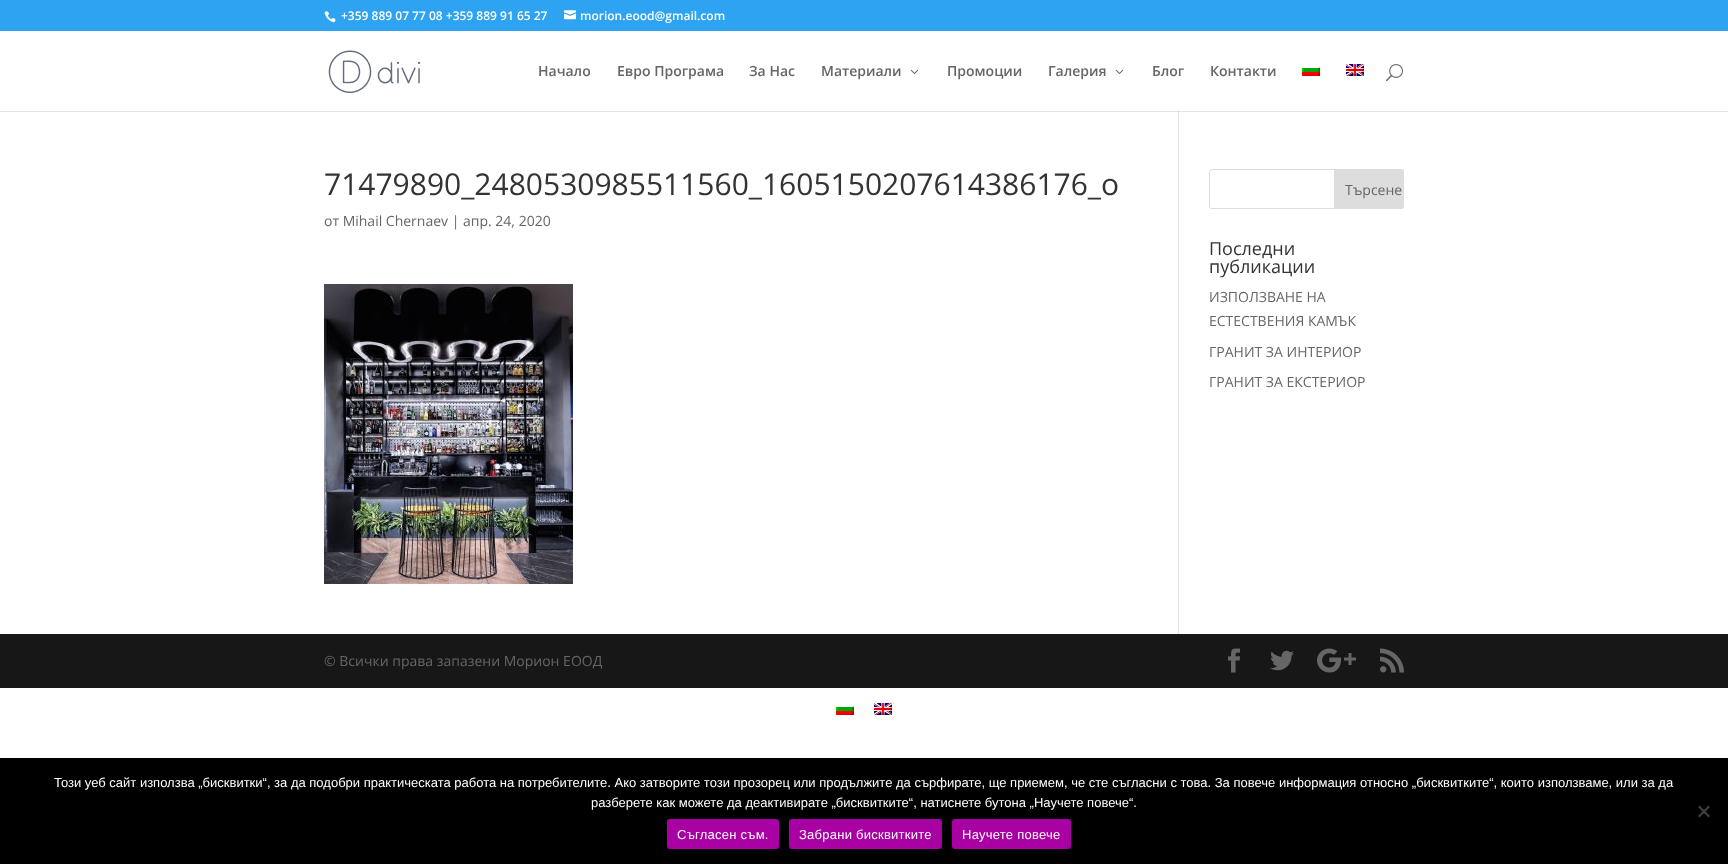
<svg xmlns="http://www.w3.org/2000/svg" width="1728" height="864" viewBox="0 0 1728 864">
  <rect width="100%" height="100%" fill="#fff"/>
  <path d="M0 111h1728v1H0z" fill="#e6e6e6"/>
  <path d="M0 0h1728v31H0z" fill="#2ea3f2"/>
  <image x="324" y="11" width="12" height="12" href="img/1.png"/>
  <image x="564" y="10" width="12" height="10" href="img/2.png"/>
  <image x="328" y="50" width="93" height="43" href="img/3.png"/>
  <image x="910" y="69" width="9" height="5" href="img/4.png"/>
  <image x="1115" y="69" width="9" height="5" href="img/4.png"/>
  <image x="1302" y="66" width="18" height="10" href="img/5.png"/>
  <image x="1346" y="64" width="18" height="12" href="img/6.png"/>
  <image x="1386" y="64" width="17" height="18" href="img/7.png"/>
  <path d="M1178 111h1v523H1178z" fill="#e2e2e2"/>
  <path d="M1178 111h1v1H1178z" fill="#cbcbcb"/>
  <image x="324" y="284" width="249" height="300" href="img/8.png"/>
  <rect x="1209.5" y="169.5" width="194" height="39" rx="2.5" fill="none" stroke="#ddd"/>
  <path d="M1334.5 169.5H1401C1402.5 169.5 1403.5 170.5 1403.5 172V206C1403.5 207.5 1402.5 208.5 1401 208.5H1334.5Z" fill="#ddd" stroke="#ddd"/>
  <path d="M0 634h1728v54H0z" fill="#171717"/>
  <image x="1228" y="648" width="12" height="25" href="img/9.png"/>
  <image x="1270" y="650" width="24" height="21" href="img/10.png"/>
  <image x="1317" y="648" width="39" height="25" href="img/11.png"/>
  <image x="1380" y="648" width="24" height="25" href="img/12.png"/>
  <image x="836" y="705" width="18" height="10" href="img/5.png"/>
  <image x="874" y="703" width="18" height="12" href="img/6.png"/>
  <path d="M0 758h1728v106H0z" fill="#000"/>
  <path d="M1708.5 805.5L1710 807L1699.5 817.5L1698 816Z" fill="#404040"/>
  <path d="M1698 807L1699.5 805.5L1710 816L1708.5 817.5Z" fill="#404040"/>
  <rect x="667" y="819" width="112" height="30" rx="3" fill="#a800a2"/>
  <rect x="789" y="819" width="153" height="30" rx="3" fill="#a800a2"/>
  <rect x="952" y="819" width="119" height="30" rx="3" fill="#a800a2"/>
  <g font-family="Open Sans" font-size="12" font-weight="600" fill="#fff">
    <text x="341" y="20">+359 889 07 77 08 +359 889 91 65 27</text>
    <text x="580" y="20">morion.eood@gmail.com</text>
  </g>
  <g font-family="Open Sans" font-size="14" font-weight="600" fill="#666">
    <text x="538" y="76">Начало</text>
    <text x="617" y="76">Евро Програма</text>
    <text x="749" y="76">За Нас</text>
    <text x="821" y="76">Материали</text>
    <text x="947" y="76">Промоции</text>
    <text x="1048" y="76">Галерия</text>
    <text x="1152" y="76">Блог</text>
    <text x="1210" y="76">Контакти</text>
  </g>
  <text x="324" y="195" font-family="Open Sans" font-size="30" fill="#333">71479890_2480530985511560_1605150207614386176_o</text>
  <g font-family="Open Sans" font-size="14" fill="#666">
    <text x="324" y="226">от Mihail Chernaev | апр. 24, 2020</text>
    <text x="1345" y="195">Търсене</text>
  </g>
  <g font-family="Open Sans" font-size="18" fill="#333">
    <text x="1209" y="255">Последни</text>
    <text x="1209" y="273">публикации</text>
  </g>
  <g font-family="Open Sans" font-size="14" fill="#666">
    <text x="1209" y="302">ИЗПОЛЗВАНЕ НА</text>
    <text x="1209" y="326">ЕСТЕСТВЕНИЯ КАМЪК</text>
    <text x="1209" y="357">ГРАНИТ ЗА ИНТЕРИОР</text>
    <text x="1209" y="387">ГРАНИТ ЗА ЕКСТЕРИОР</text>
    <text x="324" y="666">© Всички права запазени Морион ЕООД</text>
  </g>
  <g font-family="Liberation Sans" font-size="13" fill="#fff">
    <text x="54" y="787">Този уеб сайт използва „бисквитки“, за да подобри практическата работа на потребителите. Ако затворите този прозорец или продължите да сърфирате, ще приемем, че сте съгласни с това. За повече информация относно „бисквитките“, които използваме, или за да</text>
    <text x="591" y="807">разберете как можете да деактивирате „бисквитките“, натиснете бутона „Научете повече“.</text>
  </g>
  <g font-family="Liberation Sans" font-size="13" letter-spacing="0.25" fill="#fff">
    <text x="677" y="839">Съгласен съм.</text>
    <text x="799" y="839">Забрани бисквитките</text>
    <text x="962" y="839">Научете повече</text>
  </g>
</svg>
